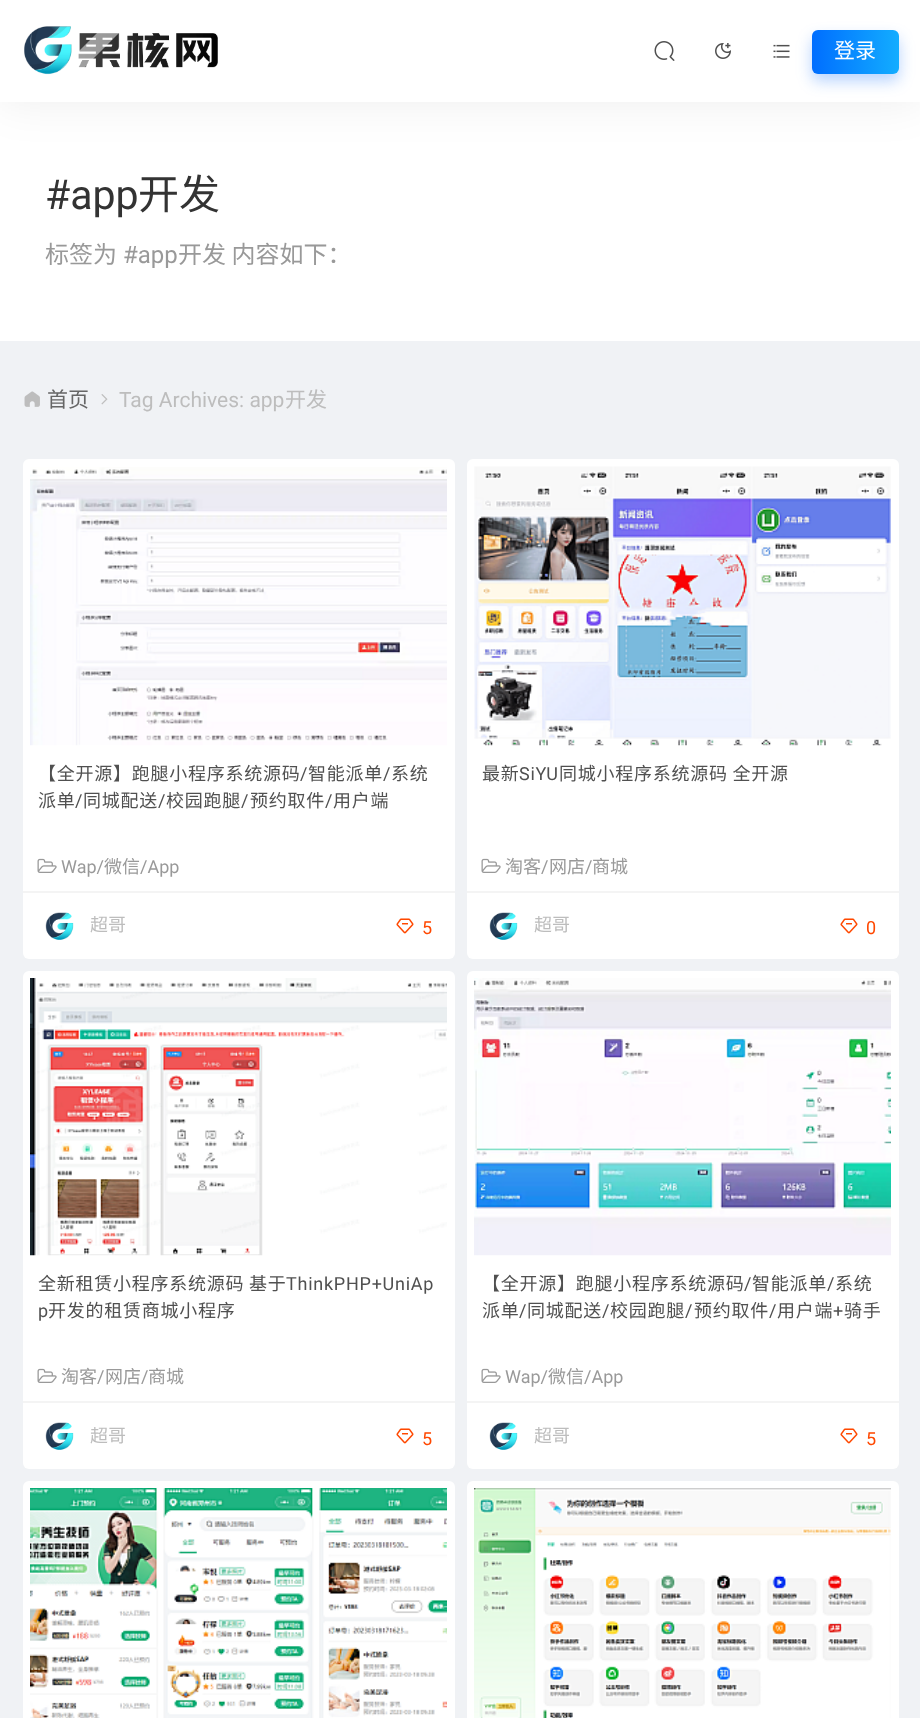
<svg xmlns="http://www.w3.org/2000/svg" width="920" height="1718" viewBox="0 0 920 1718">
  <defs>
    <linearGradient id="g1" gradientUnits="userSpaceOnUse" x1="812" y1="52" x2="899" y2="52"><stop offset="0" stop-color="#006eff"/><stop offset="1" stop-color="#13adff"/></linearGradient>
  </defs>
  <rect width="100%" height="100%" fill="#f0f2f5"/>
  <path d="M0 102h920v239H0z" fill="#fff"/>
  <path d="M0 0h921v102H0z" fill="#00000012" filter="blur(22.5px)"/>
  <path d="M0 0h920v102H0z" fill="#fff"/>
  <image x="24" y="26" width="194" height="49" href="img/1.png"/>
  <path d="M43 87L168-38L179-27L54 98Z" fill="#ffffff80"/>
  <image x="654" y="41" width="21" height="20" href="img/2.png"/>
  <image x="715" y="43" width="16" height="16" href="img/3.png"/>
  <image x="773" y="44" width="17" height="14" href="img/4.png"/>
  <rect x="812" y="38" width="87" height="43" rx="6" fill="#106efd4d" filter="blur(7.5px)"/>
  <rect x="812" y="30" width="87" height="44" rx="6" fill="url(#g1)"/>
  <image x="24" y="391" width="16" height="16" href="img/5.png"/>
  <image x="101" y="394" width="7" height="11" href="img/6.png"/>
  <rect x="23" y="459" width="432" height="500" rx="6" fill="#fff"/>
  <image x="30" y="467" width="417" height="279" href="img/7.png"/>
  <path d="M23 891h432v2H23z" fill="#f4f4f4"/>
  <image x="37" y="858" width="20" height="15" href="img/8.png"/>
  <image x="45" y="912" width="29" height="28" href="img/9.png"/>
  <image x="396" y="918" width="18" height="16" href="img/10.png"/>
  <rect x="467" y="459" width="432" height="500" rx="6" fill="#fff"/>
  <image x="474" y="466" width="417" height="280" href="img/11.png"/>
  <path d="M467 891h432v2H467z" fill="#f4f4f4"/>
  <image x="481" y="858" width="20" height="15" href="img/8.png"/>
  <image x="489" y="912" width="29" height="28" href="img/12.png"/>
  <image x="840" y="918" width="18" height="16" href="img/10.png"/>
  <rect x="23" y="971" width="432" height="498" rx="6" fill="#fff"/>
  <image x="30" y="978" width="417" height="278" href="img/13.png"/>
  <path d="M23 1401h432v2H23z" fill="#f4f4f4"/>
  <image x="37" y="1368" width="20" height="15" href="img/8.png"/>
  <image x="45" y="1422" width="29" height="28" href="img/9.png"/>
  <image x="396" y="1428" width="18" height="16" href="img/10.png"/>
  <rect x="467" y="971" width="432" height="498" rx="6" fill="#fff"/>
  <image x="474" y="978" width="417" height="278" href="img/14.png"/>
  <path d="M467 1401h432v2H467z" fill="#f4f4f4"/>
  <image x="481" y="1368" width="20" height="15" href="img/8.png"/>
  <image x="489" y="1422" width="29" height="28" href="img/12.png"/>
  <image x="840" y="1428" width="18" height="16" href="img/10.png"/>
  <rect x="23" y="1481" width="432" height="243" rx="6" fill="#fff"/>
  <image x="30" y="1488" width="417" height="230" href="img/15.png"/>
  <rect x="467" y="1481" width="432" height="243" rx="6" fill="#fff"/>
  <image x="474" y="1488" width="417" height="230" href="img/16.png"/>
  <text x="834" y="58" font-family="Noto Sans CJK SC" font-size="21" fill="#fff">登录</text>
  <text x="45" y="209" font-family="Roboto" font-size="41" fill="#333">#app</text>
  <text x="138" y="209" font-family="Noto Sans CJK SC" font-size="41" fill="#333">开发</text>
  <text x="45" y="263" font-family="Noto Sans CJK SC" font-size="24" fill="#999">标签为</text>
  <text x="123" y="263" font-family="Roboto" font-size="24" fill="#999">#app</text>
  <text x="178" y="263" font-family="Noto Sans CJK SC" font-size="24" fill="#999">开发 内容如下：</text>
  <text x="47" y="407" font-family="Noto Sans CJK SC" font-size="21" fill="#666">首页</text>
  <text x="119" y="407" font-family="Roboto" font-size="21" fill="#bdbdbd">Tag Archives: app</text>
  <text x="285" y="407" font-family="Noto Sans CJK SC" font-size="21" fill="#bdbdbd">开发</text>
  <text x="38" y="780" font-family="Noto Sans CJK SC" font-size="18" letter-spacing="0.75" fill="#505050">【全开源】跑腿小程序系统源码</text>
  <text x="300" y="780" font-family="Roboto" font-size="18" letter-spacing="0.75" fill="#505050">/</text>
  <text x="308" y="780" font-family="Noto Sans CJK SC" font-size="18" letter-spacing="0.75" fill="#505050">智能派单</text>
  <text x="383" y="780" font-family="Roboto" font-size="18" letter-spacing="0.75" fill="#505050">/</text>
  <g font-family="Noto Sans CJK SC" font-size="18" letter-spacing="0.75" fill="#505050">
    <text x="391" y="780">系统</text>
    <text x="38" y="807">派单</text>
  </g>
  <text x="75" y="807" font-family="Roboto" font-size="18" letter-spacing="0.75" fill="#505050">/</text>
  <text x="83" y="807" font-family="Noto Sans CJK SC" font-size="18" letter-spacing="0.75" fill="#505050">同城配送</text>
  <text x="158" y="807" font-family="Roboto" font-size="18" letter-spacing="0.75" fill="#505050">/</text>
  <text x="166" y="807" font-family="Noto Sans CJK SC" font-size="18" letter-spacing="0.75" fill="#505050">校园跑腿</text>
  <text x="241" y="807" font-family="Roboto" font-size="18" letter-spacing="0.75" fill="#505050">/</text>
  <text x="250" y="807" font-family="Noto Sans CJK SC" font-size="18" letter-spacing="0.75" fill="#505050">预约取件</text>
  <text x="325" y="807" font-family="Roboto" font-size="18" letter-spacing="0.75" fill="#505050">/</text>
  <text x="333" y="807" font-family="Noto Sans CJK SC" font-size="18" letter-spacing="0.75" fill="#505050">用户端</text>
  <text x="61" y="873" font-family="Roboto" font-size="18" fill="#999">Wap/</text>
  <text x="104" y="873" font-family="Noto Sans CJK SC" font-size="18" fill="#999">微信</text>
  <text x="140" y="873" font-family="Roboto" font-size="18" fill="#999">/App</text>
  <text x="90" y="931" font-family="Noto Sans CJK SC" font-size="18" fill="#bdbdbd">超哥</text>
  <text x="422" y="934" font-family="Roboto" font-size="18" fill="#ff4800">5</text>
  <text x="482" y="780" font-family="Noto Sans CJK SC" font-size="18" letter-spacing="0.75" fill="#505050">最新</text>
  <text x="519" y="780" font-family="Roboto" font-size="18" letter-spacing="0.75" fill="#505050">SiYU</text>
  <text x="559" y="780" font-family="Noto Sans CJK SC" font-size="18" letter-spacing="0.75" fill="#505050">同城小程序系统源码 全开源</text>
  <text x="505" y="873" font-family="Noto Sans CJK SC" font-size="18" fill="#999">淘客</text>
  <text x="541" y="873" font-family="Roboto" font-size="18" fill="#999">/</text>
  <text x="549" y="873" font-family="Noto Sans CJK SC" font-size="18" fill="#999">网店</text>
  <text x="585" y="873" font-family="Roboto" font-size="18" fill="#999">/</text>
  <text x="592" y="873" font-family="Noto Sans CJK SC" font-size="18" fill="#999">商城</text>
  <text x="534" y="931" font-family="Noto Sans CJK SC" font-size="18" fill="#bdbdbd">超哥</text>
  <text x="866" y="934" font-family="Roboto" font-size="18" fill="#ff4800">0</text>
  <text x="38" y="1290" font-family="Noto Sans CJK SC" font-size="18" letter-spacing="0.75" fill="#505050">全新租赁小程序系统源码 基于</text>
  <g font-family="Roboto" font-size="18" letter-spacing="0.75" fill="#505050">
    <text x="286" y="1290">ThinkPHP+UniAp</text>
    <text x="38" y="1317">p</text>
  </g>
  <text x="48" y="1317" font-family="Noto Sans CJK SC" font-size="18" letter-spacing="0.75" fill="#505050">开发的租赁商城小程序</text>
  <text x="61" y="1383" font-family="Noto Sans CJK SC" font-size="18" fill="#999">淘客</text>
  <text x="97" y="1383" font-family="Roboto" font-size="18" fill="#999">/</text>
  <text x="105" y="1383" font-family="Noto Sans CJK SC" font-size="18" fill="#999">网店</text>
  <text x="141" y="1383" font-family="Roboto" font-size="18" fill="#999">/</text>
  <text x="148" y="1383" font-family="Noto Sans CJK SC" font-size="18" fill="#999">商城</text>
  <text x="90" y="1442" font-family="Noto Sans CJK SC" font-size="18" fill="#bdbdbd">超哥</text>
  <text x="422" y="1445" font-family="Roboto" font-size="18" fill="#ff4800">5</text>
  <text x="482" y="1290" font-family="Noto Sans CJK SC" font-size="18" letter-spacing="0.75" fill="#505050">【全开源】跑腿小程序系统源码</text>
  <text x="744" y="1290" font-family="Roboto" font-size="18" letter-spacing="0.75" fill="#505050">/</text>
  <text x="752" y="1290" font-family="Noto Sans CJK SC" font-size="18" letter-spacing="0.75" fill="#505050">智能派单</text>
  <text x="827" y="1290" font-family="Roboto" font-size="18" letter-spacing="0.75" fill="#505050">/</text>
  <g font-family="Noto Sans CJK SC" font-size="18" letter-spacing="0.75" fill="#505050">
    <text x="835" y="1290">系统</text>
    <text x="482" y="1317">派单</text>
  </g>
  <text x="519" y="1317" font-family="Roboto" font-size="18" letter-spacing="0.75" fill="#505050">/</text>
  <text x="527" y="1317" font-family="Noto Sans CJK SC" font-size="18" letter-spacing="0.75" fill="#505050">同城配送</text>
  <text x="602" y="1317" font-family="Roboto" font-size="18" letter-spacing="0.75" fill="#505050">/</text>
  <text x="610" y="1317" font-family="Noto Sans CJK SC" font-size="18" letter-spacing="0.75" fill="#505050">校园跑腿</text>
  <text x="685" y="1317" font-family="Roboto" font-size="18" letter-spacing="0.75" fill="#505050">/</text>
  <text x="694" y="1317" font-family="Noto Sans CJK SC" font-size="18" letter-spacing="0.75" fill="#505050">预约取件</text>
  <text x="769" y="1317" font-family="Roboto" font-size="18" letter-spacing="0.75" fill="#505050">/</text>
  <text x="777" y="1317" font-family="Noto Sans CJK SC" font-size="18" letter-spacing="0.75" fill="#505050">用户端</text>
  <text x="833" y="1317" font-family="Roboto" font-size="18" letter-spacing="0.75" fill="#505050">+</text>
  <text x="844" y="1317" font-family="Noto Sans CJK SC" font-size="18" letter-spacing="0.75" fill="#505050">骑手</text>
  <text x="505" y="1383" font-family="Roboto" font-size="18" fill="#999">Wap/</text>
  <text x="548" y="1383" font-family="Noto Sans CJK SC" font-size="18" fill="#999">微信</text>
  <text x="584" y="1383" font-family="Roboto" font-size="18" fill="#999">/App</text>
  <text x="534" y="1442" font-family="Noto Sans CJK SC" font-size="18" fill="#bdbdbd">超哥</text>
  <text x="866" y="1445" font-family="Roboto" font-size="18" fill="#ff4800">5</text>
</svg>
